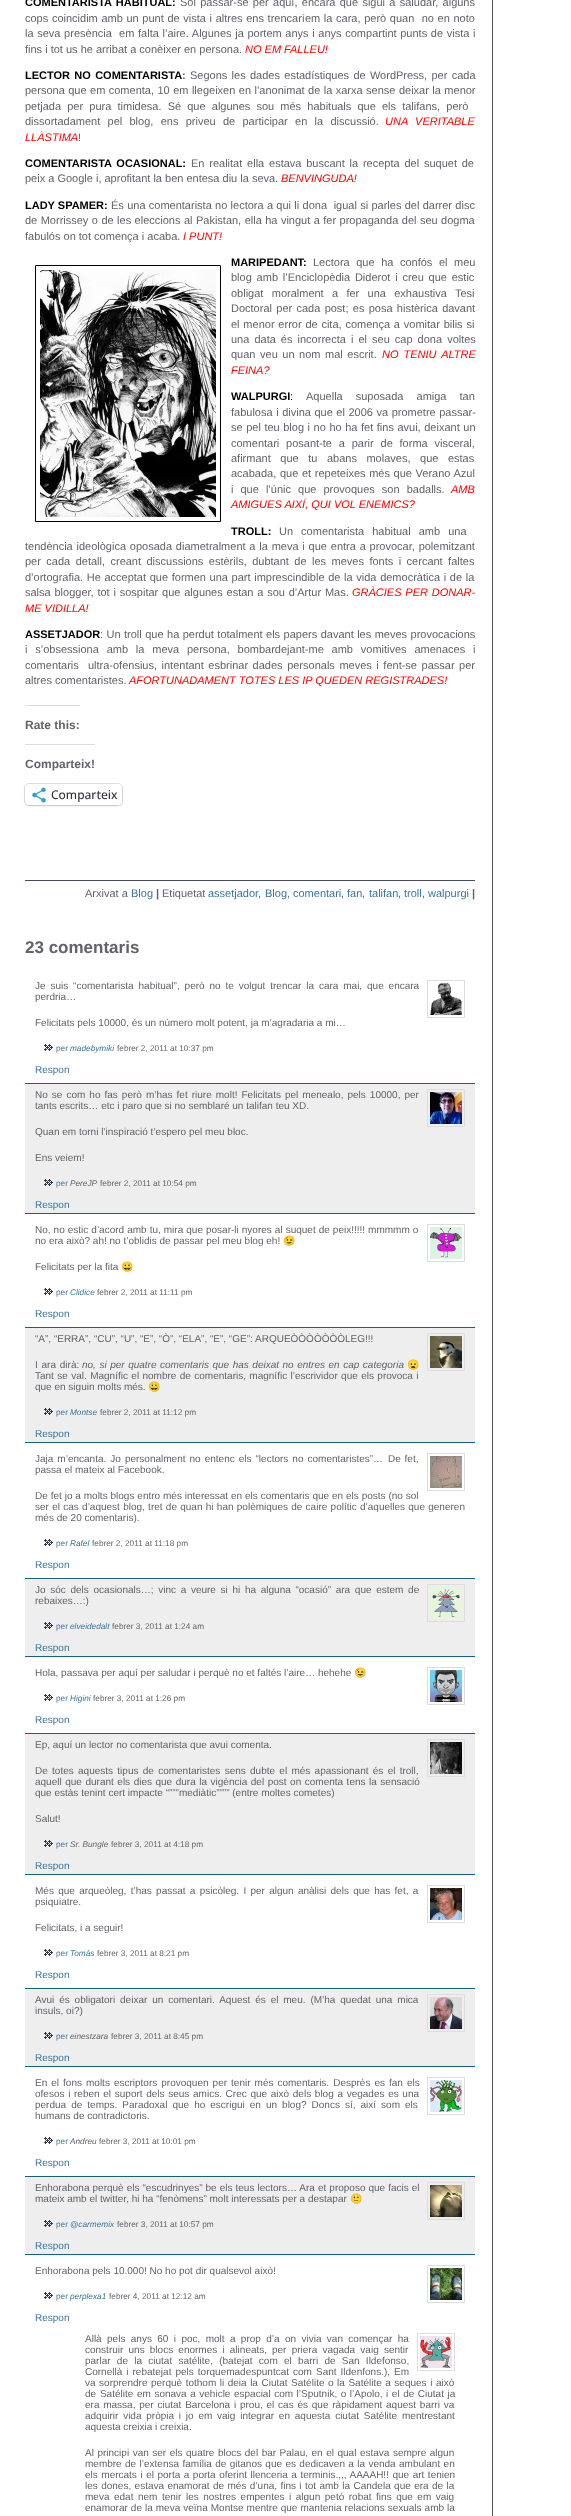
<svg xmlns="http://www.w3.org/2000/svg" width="571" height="2516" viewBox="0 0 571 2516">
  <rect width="100%" height="100%" fill="#fff"/>
  <path d="M35.5 265.5h185v256H35.5z" fill="none" stroke="#000"/>
  <image x="40" y="270" width="176" height="247" href="img/1.png"/>
  <path d="M25 705h55v1H25z" fill="#dcdcde"/>
  <path d="M25 744h70v1H25z" fill="#dcdcde"/>
  <rect x="24.5" y="783.5" width="98" height="22" rx="4.5" fill="none" stroke="#e0e0e0"/>
  <rect x="25" y="785" width="97" height="21" rx="4" fill="#0000001f" filter="blur(1px)"/>
  <rect x="25" y="784" width="97" height="21" rx="4" fill="#fff"/>
  <image x="32" y="787" width="14" height="16" href="img/2.png"/>
  <path d="M25 880h450v1H25z" fill="#454c67"/>
  <path d="M427.5 980.5h37v37H427.5z" fill="none" stroke="#ddd"/>
  <image x="430" y="983" width="32" height="32" href="img/3.png"/>
  <image x="44" y="1044" width="9" height="7" href="img/4.png"/>
  <path d="M25 1084h450v129H25z" fill="#eee"/>
  <path d="M25 1083h450v1H25z" fill="#136284"/>
  <path d="M25 1213h450v1H25z" fill="#136284"/>
  <path d="M427.5 1089.5h37v37H427.5z" fill="none" stroke="#ddd"/>
  <image x="430" y="1092" width="32" height="32" href="img/5.png"/>
  <image x="44" y="1179" width="9" height="7" href="img/6.png"/>
  <path d="M427.5 1224.5h37v37H427.5z" fill="none" stroke="#ddd"/>
  <image x="430" y="1227" width="32" height="32" href="img/7.png"/>
  <image x="44" y="1288" width="9" height="7" href="img/4.png"/>
  <path d="M25 1328h450v114H25z" fill="#eee"/>
  <path d="M25 1327h450v1H25z" fill="#136284"/>
  <path d="M25 1442h450v1H25z" fill="#136284"/>
  <path d="M427.5 1333.5h37v37H427.5z" fill="none" stroke="#ddd"/>
  <image x="430" y="1336" width="32" height="32" href="img/8.png"/>
  <image x="44" y="1408" width="9" height="7" href="img/6.png"/>
  <path d="M427.5 1453.5h37v37H427.5z" fill="none" stroke="#ddd"/>
  <image x="430" y="1456" width="32" height="32" href="img/9.png"/>
  <image x="44" y="1539" width="9" height="7" href="img/4.png"/>
  <path d="M25 1579h450v77H25z" fill="#eee"/>
  <path d="M25 1578h450v1H25z" fill="#136284"/>
  <path d="M25 1656h450v1H25z" fill="#136284"/>
  <path d="M427.5 1584.5h37v37H427.5z" fill="none" stroke="#ddd"/>
  <image x="430" y="1587" width="32" height="32" href="img/10.png"/>
  <image x="44" y="1622" width="9" height="7" href="img/6.png"/>
  <path d="M427.5 1667.5h37v37H427.5z" fill="none" stroke="#ddd"/>
  <image x="430" y="1670" width="32" height="32" href="img/11.png"/>
  <image x="44" y="1694" width="9" height="7" href="img/4.png"/>
  <path d="M25 1734h450v140H25z" fill="#eee"/>
  <path d="M25 1733h450v1H25z" fill="#136284"/>
  <path d="M25 1874h450v1H25z" fill="#136284"/>
  <path d="M427.5 1739.5h37v37H427.5z" fill="none" stroke="#ddd"/>
  <image x="430" y="1742" width="32" height="32" href="img/12.png"/>
  <image x="44" y="1840" width="9" height="7" href="img/6.png"/>
  <path d="M427.5 1885.5h37v37H427.5z" fill="none" stroke="#ddd"/>
  <image x="430" y="1888" width="32" height="32" href="img/13.png"/>
  <image x="44" y="1949" width="9" height="7" href="img/4.png"/>
  <path d="M25 1989h450v77H25z" fill="#eee"/>
  <path d="M25 1988h450v1H25z" fill="#136284"/>
  <path d="M25 2066h450v1H25z" fill="#136284"/>
  <path d="M427.5 1994.5h37v37H427.5z" fill="none" stroke="#ddd"/>
  <image x="430" y="1997" width="32" height="32" href="img/14.png"/>
  <image x="44" y="2032" width="9" height="7" href="img/6.png"/>
  <path d="M427.5 2077.5h37v37H427.5z" fill="none" stroke="#ddd"/>
  <image x="430" y="2080" width="32" height="32" href="img/15.png"/>
  <image x="44" y="2137" width="9" height="7" href="img/4.png"/>
  <path d="M25 2177h450v77H25z" fill="#eee"/>
  <path d="M25 2176h450v1H25z" fill="#136284"/>
  <path d="M25 2254h450v1H25z" fill="#136284"/>
  <path d="M427.5 2182.5h37v37H427.5z" fill="none" stroke="#ddd"/>
  <image x="430" y="2185" width="32" height="32" href="img/16.png"/>
  <image x="44" y="2220" width="9" height="7" href="img/6.png"/>
  <path d="M427.5 2265.5h37v37H427.5z" fill="none" stroke="#ddd"/>
  <image x="430" y="2268" width="32" height="32" href="img/17.png"/>
  <image x="44" y="2292" width="9" height="7" href="img/4.png"/>
  <path d="M417.5 2333.5h37v37H417.5z" fill="none" stroke="#ddd"/>
  <image x="420" y="2336" width="32" height="32" href="img/18.png"/>
  <path d="M492 0h1v2516H492z" fill="#4c4f58"/>
  <text x="25" y="6" word-spacing="1.25" font-family="Liberation Sans" font-size="11" font-weight="bold" fill="#000">COMENTARISTA HABITUAL:</text>
  <g font-family="Liberation Sans" font-size="11" fill="#61636a">
    <text x="180" y="6" word-spacing="1.25">Sol passar-se per aquí, encara que sigui a saludar, alguns</text>
    <text x="25" y="22" word-spacing="0.6" xml:space="preserve">cops coincidim amb un punt de vista i altres ens trencaríem la cara, però quan  no en noto</text>
    <text x="25" y="37" word-spacing="0.6" xml:space="preserve">la seva presència  em falta l’aire. Algunes ja portem anys i anys compartint punts de vista i</text>
    <text x="25" y="53">fins i tot us he arribat a conèixer en persona.</text>
  </g>
  <text x="245" y="53" font-family="Liberation Sans" font-size="11" font-style="italic" fill="#f00">NO EM FALLEU!</text>
  <text x="25" y="79" word-spacing="1.25" font-family="Liberation Sans" font-size="11" font-weight="bold" fill="#000">LECTOR NO COMENTARISTA</text>
  <text x="182" y="79" font-family="Liberation Sans" font-size="11" font-weight="bold" fill="#61636a">:</text>
  <g font-family="Liberation Sans" font-size="11" fill="#61636a">
    <text x="190" y="79" word-spacing="1.25">Segons les dades estadístiques de WordPress, per cada</text>
    <text x="25" y="94" word-spacing="0.4">persona que em comenta, 10 em llegeixen en l’anonimat de la xarxa sense deixar la menor</text>
    <text x="25" y="110" word-spacing="3.1">petjada per pura timidesa. Sé que algunes sou més habituals que els talifans, però</text>
    <text x="25" y="125" word-spacing="4.25">dissortadament pel blog, ens priveu de participar en la discussió.</text>
  </g>
  <g font-family="Liberation Sans" font-size="11" font-style="italic" fill="#f00">
    <text x="385" y="125" word-spacing="4.25">UNA VERITABLE</text>
    <text x="25" y="141">LLÀSTIMA</text>
  </g>
  <text x="78" y="141" font-family="Liberation Sans" font-size="11" fill="#61636a">!</text>
  <text x="25" y="167" word-spacing="1.75" font-family="Liberation Sans" font-size="11" font-weight="bold" fill="#000">COMENTARISTA OCASIONAL:</text>
  <g font-family="Liberation Sans" font-size="11" fill="#61636a">
    <text x="191" y="167" word-spacing="1.75">En realitat ella estava buscant la recepta del suquet de</text>
    <text x="25" y="182">peix a Google i, aprofitant la ben entesa diu la seva.</text>
  </g>
  <text x="281" y="182" font-family="Liberation Sans" font-size="11" font-style="italic" fill="#f00">BENVINGUDA!</text>
  <text x="25" y="209" font-family="Liberation Sans" font-size="11" font-weight="bold" fill="#000">LADY SPAMER:</text>
  <g font-family="Liberation Sans" font-size="11" fill="#61636a">
    <text x="111" y="209" word-spacing="0.25" xml:space="preserve">És una comentarista no lectora a qui li dona  igual si parles del darrer disc</text>
    <text x="25" y="224" word-spacing="0.4">de Morrissey o de les eleccions al Pakistan, ella ha vingut a fer propaganda del seu dogma</text>
    <text x="25" y="240">fabulós on tot comença i acaba.</text>
  </g>
  <text x="183" y="240" font-family="Liberation Sans" font-size="11" font-style="italic" fill="#f00">I PUNT!</text>
  <text x="231" y="266" font-family="Liberation Sans" font-size="11" font-weight="bold" fill="#000">MARIPEDANT:</text>
  <g font-family="Liberation Sans" font-size="11" fill="#61636a">
    <text x="313" y="266" word-spacing="3.5">Lectora que ha confós el meu</text>
    <text x="231" y="281" word-spacing="1.75">blog amb l’Enciclopèdia Diderot i creu que estic</text>
    <text x="231" y="297" word-spacing="5.25">obligat moralment a fer una exhaustiva Tesi</text>
    <text x="231" y="312" word-spacing="1.25">Doctoral per cada post; es posa histèrica davant</text>
    <text x="231" y="328" word-spacing="0.75">el menor error de cita, comença a vomitar bilis si</text>
    <text x="231" y="343" word-spacing="2">una data és incorrecta i el seu cap dona voltes</text>
    <text x="231" y="358" word-spacing="1.5">quan veu un nom mal escrit.</text>
  </g>
  <g font-family="Liberation Sans" font-size="11" font-style="italic" fill="#f00">
    <text x="382" y="358" word-spacing="2">NO TENIU ALTRE</text>
    <text x="231" y="374">FEINA?</text>
  </g>
  <text x="231" y="400" font-family="Liberation Sans" font-size="11" font-weight="bold" fill="#000">WALPURGI</text>
  <text x="290" y="400" font-family="Liberation Sans" font-size="11" fill="#000">:</text>
  <g font-family="Liberation Sans" font-size="11" fill="#61636a">
    <text x="306" y="400" word-spacing="10">Aquella suposada amiga tan</text>
    <text x="231" y="416" word-spacing="0.5">fabulosa i divina que el 2006 va prometre passar-</text>
    <text x="231" y="431" word-spacing="0.5">se pel teu blog i no ho ha fet fins avui, deixant un</text>
    <text x="231" y="447" word-spacing="3.75">comentari posant-te a parir de forma visceral,</text>
    <text x="231" y="462" word-spacing="6.5">afirmant que tu abans molaves, que estas</text>
    <text x="231" y="477" word-spacing="0.6">acabada, que et repeteixes més que Verano Azul</text>
    <text x="231" y="493" word-spacing="4">i que l’únic que provoques son badalls.</text>
  </g>
  <g font-family="Liberation Sans" font-size="11" font-style="italic" fill="#f00">
    <text x="451" y="493">AMB</text>
    <text x="231" y="508">AMIGUES AIXÍ, QUI VOL ENEMICS?</text>
  </g>
  <text x="231" y="535" font-family="Liberation Sans" font-size="11" font-weight="bold" fill="#000">TROLL:</text>
  <g font-family="Liberation Sans" font-size="11" fill="#61636a">
    <text x="279" y="535" word-spacing="5">Un comentarista habitual amb una</text>
    <text x="25" y="550" word-spacing="0.75">tendència ideològica oposada diametralment a la meva i que entra a provocar, polemitzant</text>
    <text x="25" y="565" word-spacing="2.4">per cada detall, creant discussions estèrils, dubtant de les meves fonts i cercant faltes</text>
    <text x="25" y="581" word-spacing="0.6">d’ortografia. He acceptat que formen una part imprescindible de la vida democràtica i de la</text>
    <text x="25" y="596" word-spacing="0.75">salsa blogger, tot i sospitar que algunes estan a sou d’Artur Mas.</text>
  </g>
  <g font-family="Liberation Sans" font-size="11" font-style="italic" fill="#f00">
    <text x="352" y="596" word-spacing="0.75">GRÀCIES PER DONAR-</text>
    <text x="25" y="612">ME VIDILLA!</text>
  </g>
  <text x="25" y="638" font-family="Liberation Sans" font-size="11" font-weight="bold" fill="#000">ASSETJADOR</text>
  <g font-family="Liberation Sans" font-size="11" fill="#61636a">
    <text x="100" y="638" word-spacing="0.4">: Un troll que ha perdut totalment els papers davant les meves provocacions</text>
    <text x="25" y="653" word-spacing="4.75">i s’obsessiona amb la meva persona, bombardejant-me amb vomitives amenaces i</text>
    <text x="25" y="669" word-spacing="1.5" xml:space="preserve">comentaris  ultra-ofensius, intentant esbrinar dades personals meves i fent-se passar per</text>
    <text x="25" y="684">altres comentaristes.</text>
  </g>
  <text x="129" y="684" font-family="Liberation Sans" font-size="11" font-style="italic" fill="#f00">AFORTUNADAMENT TOTES LES IP QUEDEN REGISTRADES!</text>
  <g font-family="Liberation Sans" font-size="12" font-weight="bold" fill="#61636a">
    <text x="25" y="729">Rate this:</text>
    <text x="25" y="768">Comparteix!</text>
  </g>
  <text x="51" y="799" font-family="Open Sans" font-size="12" font-weight="500" fill="#2c3338">Comparteix</text>
  <text x="85" y="897" font-family="Liberation Sans" font-size="11" fill="#61636a">Arxivat a</text>
  <text x="131" y="897" font-family="Liberation Sans" font-size="11" fill="#36769c">Blog</text>
  <text x="156" y="897" font-family="Liberation Sans" font-size="11" font-weight="bold" fill="#61636a">|</text>
  <text x="162" y="897" font-family="Liberation Sans" font-size="11" fill="#61636a">Etiquetat</text>
  <text x="208" y="897" font-family="Liberation Sans" font-size="11" fill="#36769c">assetjador</text>
  <text x="258" y="897" font-family="Liberation Sans" font-size="11" fill="#61636a">,</text>
  <text x="265" y="897" font-family="Liberation Sans" font-size="11" fill="#36769c">Blog</text>
  <text x="287" y="897" font-family="Liberation Sans" font-size="11" fill="#61636a">,</text>
  <text x="293" y="897" font-family="Liberation Sans" font-size="11" fill="#36769c">comentari</text>
  <text x="341" y="897" font-family="Liberation Sans" font-size="11" fill="#61636a">,</text>
  <text x="347" y="897" font-family="Liberation Sans" font-size="11" fill="#36769c">fan</text>
  <text x="362" y="897" font-family="Liberation Sans" font-size="11" fill="#61636a">,</text>
  <text x="369" y="897" font-family="Liberation Sans" font-size="11" fill="#36769c">talifan</text>
  <text x="398" y="897" font-family="Liberation Sans" font-size="11" fill="#61636a">,</text>
  <text x="404" y="897" font-family="Liberation Sans" font-size="11" fill="#36769c">troll</text>
  <text x="422" y="897" font-family="Liberation Sans" font-size="11" fill="#61636a">,</text>
  <text x="428" y="897" font-family="Liberation Sans" font-size="11" fill="#36769c">walpurgi</text>
  <text x="472" y="897" font-family="Liberation Sans" font-size="11" font-weight="bold" fill="#61636a">|</text>
  <text x="25" y="953" font-family="Liberation Sans" font-size="17" font-weight="bold" fill="#61636a">23 comentaris</text>
  <g font-family="Liberation Sans" font-size="10" fill="#61636a">
    <text x="35" y="989" word-spacing="2.1">Je suis “comentarista habitual”, però no te volgut trencar la cara mai, que encara</text>
    <text x="35" y="1000">perdria…</text>
    <text x="35" y="1026">Felicitats pels 10000, és un número molt potent, ja m’agradaria a mi…</text>
  </g>
  <text x="56" y="1051" font-family="Liberation Sans" font-size="8.25" fill="#36769c">per</text>
  <text x="70" y="1051" font-family="Liberation Sans" font-size="8.25" font-style="italic" fill="#36769c">madebymiki</text>
  <text x="117" y="1051" font-family="Liberation Sans" font-size="8.25" fill="#61636a">febrer 2, 2011 at 10:37 pm</text>
  <text x="35" y="1073" font-family="Liberation Sans" font-size="10" fill="#36769c">Respon</text>
  <g font-family="Liberation Sans" font-size="10" fill="#61636a">
    <text x="35" y="1098" word-spacing="1.25">No se com ho fas però m’has fet riure molt! Felicitats pel menealo, pels 10000, per</text>
    <text x="35" y="1109">tants escrits… etc i paro que si no semblaré un talifan teu XD.</text>
    <text x="35" y="1135">Quan em torni l’inspiració t’espero pel meu bloc.</text>
    <text x="35" y="1161">Ens veiem!</text>
  </g>
  <text x="56" y="1186" font-family="Liberation Sans" font-size="8.25" fill="#36769c">per</text>
  <text x="70" y="1186" font-family="Liberation Sans" font-size="8.25" font-style="italic" fill="#61636a">PereJP</text>
  <text x="100" y="1186" font-family="Liberation Sans" font-size="8.25" fill="#61636a">febrer 2, 2011 at 10:54 pm</text>
  <text x="35" y="1208" font-family="Liberation Sans" font-size="10" fill="#36769c">Respon</text>
  <g font-family="Liberation Sans" font-size="10" fill="#61636a">
    <text x="35" y="1233" word-spacing="0.25">No, no estic d’acord amb tu, mira que posar-li nyores al suquet de peix!!!!! mmmmm o</text>
    <text x="35" y="1244">no era això? ah! no t’oblidis de passar pel meu blog eh!</text>
  </g>
  <text x="283" y="1244" font-family="Noto Color Emoji" font-size="10" fill="#61636a">😉</text>
  <text x="35" y="1270" font-family="Liberation Sans" font-size="10" fill="#61636a">Felicitats per la fita</text>
  <text x="121" y="1270" font-family="Noto Color Emoji" font-size="10" fill="#61636a">😀</text>
  <text x="56" y="1295" font-family="Liberation Sans" font-size="8.25" fill="#36769c">per</text>
  <text x="70" y="1295" font-family="Liberation Sans" font-size="8.25" font-style="italic" fill="#36769c">Clidice</text>
  <text x="97" y="1295" font-family="Liberation Sans" font-size="8.25" fill="#61636a">febrer 2, 2011 at 11:11 pm</text>
  <text x="35" y="1317" font-family="Liberation Sans" font-size="10" fill="#36769c">Respon</text>
  <g font-family="Liberation Sans" font-size="10" fill="#61636a">
    <text x="35" y="1342">“A”, “ERRA”, “CU”, “U”, “E”, “Ò”, “ELA”, “E”, “GE”: ARQUEÒÒÒÒÒÒÒLEG!!!</text>
    <text x="35" y="1368" word-spacing="1">I ara dirà:</text>
  </g>
  <text x="82" y="1368" word-spacing="0.75" font-family="Liberation Sans" font-size="10" font-style="italic" fill="#61636a">no, si per quatre comentaris que has deixat no entres en cap categoria</text>
  <text x="407" y="1368" font-family="Noto Color Emoji" font-size="10" fill="#61636a">😦</text>
  <g font-family="Liberation Sans" font-size="10" fill="#61636a">
    <text x="35" y="1379" word-spacing="0.6">Tant se val. Magnífic el nombre de comentaris, magnífic l’escrividor que els provoca i</text>
    <text x="35" y="1390">que en siguin molts més.</text>
  </g>
  <text x="148" y="1390" font-family="Noto Color Emoji" font-size="10" fill="#61636a">😀</text>
  <text x="56" y="1415" font-family="Liberation Sans" font-size="8.25" fill="#36769c">per</text>
  <text x="70" y="1415" font-family="Liberation Sans" font-size="8.25" font-style="italic" fill="#36769c">Montse</text>
  <text x="100" y="1415" font-family="Liberation Sans" font-size="8.25" fill="#61636a">febrer 2, 2011 at 11:12 pm</text>
  <text x="35" y="1437" font-family="Liberation Sans" font-size="10" fill="#36769c">Respon</text>
  <g font-family="Liberation Sans" font-size="10" fill="#61636a">
    <text x="35" y="1462" word-spacing="1.25">Jaja m’encanta. Jo personalment no entenc els “lectors no comentaristes”…</text>
    <text x="388" y="1462" word-spacing="1">De fet,</text>
    <text x="35" y="1473">passa el mateix al Facebook.</text>
    <text x="35" y="1499" word-spacing="0.1">De fet jo a molts blogs entro més interessat en els comentaris que en els posts (no sol</text>
    <text x="35" y="1510" word-spacing="0.5">ser el cas d’aquest blog, tret de quan hi han polèmiques de caire polític d’aquelles que generen</text>
    <text x="35" y="1521">més de 20 comentaris).</text>
  </g>
  <text x="56" y="1546" font-family="Liberation Sans" font-size="8.25" fill="#36769c">per</text>
  <text x="70" y="1546" font-family="Liberation Sans" font-size="8.25" font-style="italic" fill="#36769c">Rafel</text>
  <text x="92" y="1546" font-family="Liberation Sans" font-size="8.25" fill="#61636a">febrer 2, 2011 at 11:18 pm</text>
  <text x="35" y="1568" font-family="Liberation Sans" font-size="10" fill="#36769c">Respon</text>
  <g font-family="Liberation Sans" font-size="10" fill="#61636a">
    <text x="35" y="1593" word-spacing="1.9">Jo sóc dels ocasionals…; vinc a veure si hi ha alguna “ocasió” ara que estem de</text>
    <text x="35" y="1604">rebaixes…:)</text>
  </g>
  <text x="56" y="1629" font-family="Liberation Sans" font-size="8.25" fill="#36769c">per</text>
  <text x="70" y="1629" font-family="Liberation Sans" font-size="8.25" font-style="italic" fill="#36769c">elveidedalt</text>
  <text x="112" y="1629" font-family="Liberation Sans" font-size="8.25" fill="#61636a">febrer 3, 2011 at 1:24 am</text>
  <text x="35" y="1651" font-family="Liberation Sans" font-size="10" fill="#36769c">Respon</text>
  <text x="35" y="1676" font-family="Liberation Sans" font-size="10" fill="#61636a">Hola, passava per aquí per saludar i perquè no et faltés l’aire… hehehe</text>
  <text x="354" y="1676" font-family="Noto Color Emoji" font-size="10" fill="#61636a">😉</text>
  <text x="56" y="1701" font-family="Liberation Sans" font-size="8.25" fill="#36769c">per</text>
  <text x="70" y="1701" font-family="Liberation Sans" font-size="8.25" font-style="italic" fill="#36769c">Higini</text>
  <text x="93" y="1701" font-family="Liberation Sans" font-size="8.25" fill="#61636a">febrer 3, 2011 at 1:26 pm</text>
  <text x="35" y="1723" font-family="Liberation Sans" font-size="10" fill="#36769c">Respon</text>
  <g font-family="Liberation Sans" font-size="10" fill="#61636a">
    <text x="35" y="1748">Ep, aquí un lector no comentarista que avui comenta.</text>
    <text x="35" y="1774" word-spacing="1.5">De totes aquests tipus de comentaristes sens dubte el més apassionant és el troll,</text>
    <text x="35" y="1785" word-spacing="0.75">aquell que durant els dies que dura la vigència del post on comenta tens la sensació</text>
    <text x="35" y="1796">que estàs tenint cert impacte “”””mediàtic”””” (entre moltes cometes)</text>
    <text x="35" y="1822">Salut!</text>
  </g>
  <text x="56" y="1847" font-family="Liberation Sans" font-size="8.25" fill="#36769c">per</text>
  <text x="70" y="1847" font-family="Liberation Sans" font-size="8.25" font-style="italic" fill="#61636a">Sr. Bungle</text>
  <text x="111" y="1847" font-family="Liberation Sans" font-size="8.25" fill="#61636a">febrer 3, 2011 at 4:18 pm</text>
  <text x="35" y="1869" font-family="Liberation Sans" font-size="10" fill="#36769c">Respon</text>
  <g font-family="Liberation Sans" font-size="10" fill="#61636a">
    <text x="35" y="1894" word-spacing="1.5">Més que arqueòleg, t’has passat a psicòleg. I per algun anàlisi dels que has fet, a</text>
    <text x="35" y="1905">psiquiatre.</text>
    <text x="35" y="1931">Felicitats, i a seguir!</text>
  </g>
  <text x="56" y="1956" font-family="Liberation Sans" font-size="8.25" fill="#36769c">per</text>
  <text x="70" y="1956" font-family="Liberation Sans" font-size="8.25" font-style="italic" fill="#36769c">Tomàs</text>
  <text x="97" y="1956" font-family="Liberation Sans" font-size="8.25" fill="#61636a">febrer 3, 2011 at 8:21 pm</text>
  <text x="35" y="1978" font-family="Liberation Sans" font-size="10" fill="#36769c">Respon</text>
  <g font-family="Liberation Sans" font-size="10" fill="#61636a">
    <text x="35" y="2003" word-spacing="2.1">Avui és obligatori deixar un comentari. Aquest és el meu. (M’ha quedat una mica</text>
    <text x="35" y="2014">insuls, oi?)</text>
  </g>
  <text x="56" y="2039" font-family="Liberation Sans" font-size="8.25" fill="#36769c">per</text>
  <text x="70" y="2039" font-family="Liberation Sans" font-size="8.25" font-style="italic" fill="#61636a">einestzara</text>
  <text x="111" y="2039" font-family="Liberation Sans" font-size="8.25" fill="#61636a">febrer 3, 2011 at 8:45 pm</text>
  <text x="35" y="2061" font-family="Liberation Sans" font-size="10" fill="#36769c">Respon</text>
  <g font-family="Liberation Sans" font-size="10" fill="#61636a">
    <text x="35" y="2086" word-spacing="1.25">En el fons</text>
    <text x="86" y="2086" word-spacing="1.25">molts escriptors provoquen per tenir més comentaris. Desprès es fan els</text>
    <text x="35" y="2097" word-spacing="0.9">ofesos i reben el suport dels seus amics. Crec que això dels blog a vegades es una</text>
    <text x="35" y="2108" word-spacing="2.25">perdua de temps. Paradoxal que ho escrigui en un blog? Doncs sí, així som els</text>
    <text x="35" y="2119">humans de contradictoris.</text>
  </g>
  <text x="56" y="2144" font-family="Liberation Sans" font-size="8.25" fill="#36769c">per</text>
  <text x="70" y="2144" font-family="Liberation Sans" font-size="8.25" font-style="italic" fill="#61636a">Andreu</text>
  <text x="99" y="2144" font-family="Liberation Sans" font-size="8.25" fill="#61636a">febrer 3, 2011 at 10:01 pm</text>
  <text x="35" y="2166" font-family="Liberation Sans" font-size="10" fill="#36769c">Respon</text>
  <g font-family="Liberation Sans" font-size="10" fill="#61636a">
    <text x="35" y="2191" word-spacing="0.25">Enhorabona perquè els “escudrinyes” be els teus lectors… Ara et proposo que facis el</text>
    <text x="35" y="2202">mateix amb el twitter, hi ha “fenòmens” molt interessats per a destapar</text>
  </g>
  <text x="350" y="2202" font-family="Noto Color Emoji" font-size="10" fill="#61636a">🙂</text>
  <text x="56" y="2227" font-family="Liberation Sans" font-size="8.25" fill="#36769c">per</text>
  <text x="70" y="2227" font-family="Liberation Sans" font-size="8.25" font-style="italic" fill="#36769c">@carmemix</text>
  <text x="117" y="2227" font-family="Liberation Sans" font-size="8.25" fill="#61636a">febrer 3, 2011 at 10:57 pm</text>
  <text x="35" y="2249" font-family="Liberation Sans" font-size="10" fill="#36769c">Respon</text>
  <text x="35" y="2274" font-family="Liberation Sans" font-size="10" fill="#61636a">Enhorabona pels 10.000! No ho pot dir qualsevol això!</text>
  <text x="56" y="2299" font-family="Liberation Sans" font-size="8.25" fill="#36769c">per</text>
  <text x="70" y="2299" font-family="Liberation Sans" font-size="8.25" font-style="italic" fill="#36769c">perplexa1</text>
  <text x="109" y="2299" font-family="Liberation Sans" font-size="8.25" fill="#61636a">febrer 4, 2011 at 12:12 am</text>
  <text x="35" y="2321" font-family="Liberation Sans" font-size="10" fill="#36769c">Respon</text>
  <g font-family="Liberation Sans" font-size="10" fill="#61636a">
    <text x="85" y="2342" word-spacing="2.6">Allà pels anys 60 i poc, molt a prop d’a on vivia van començar ha</text>
    <text x="85" y="2353" word-spacing="2.4">construir uns blocs enormes i alineats,</text>
    <text x="272" y="2353" word-spacing="2.4">per priera vagada vaig sentir</text>
    <text x="85" y="2364" word-spacing="3.5">parlar de la ciutat satélite, (batejat com el barri de San Ildefonso,</text>
    <text x="85" y="2375" word-spacing="1.25">Cornellà i rebatejat pels torquemadespuntcat com Sant Ildenfons.), Em</text>
    <text x="85" y="2386" word-spacing="0.75">va sorprendre perquè tothom li deia la Ciutat Satélite o la Satélite a seques i això</text>
    <text x="85" y="2397" word-spacing="1">de Satélite</text>
    <text x="137" y="2397" word-spacing="0.75">em sonava a vehicle espacial com l’Sputnik, o l’Apolo, i el de Ciutat ja</text>
    <text x="85" y="2408" word-spacing="1">era massa, per ciutat Barcelona i prou, el cas és que ràpidament aquest barri va</text>
    <text x="85" y="2419" word-spacing="2">adquirir vida pròpia i jo em vaig integrar en aquesta ciutat Satélite</text>
    <text x="402" y="2419">mentrestant</text>
    <text x="85" y="2430">aquesta creixia i creixia.</text>
    <text x="85" y="2456" word-spacing="0.75">Al principi van ser els quatre blocs del bar Palau, en el qual estava sempre algun</text>
    <text x="85" y="2467" word-spacing="0.6">membre de l’extensa família de gitanos que es dedicaven a la venda ambulant en</text>
    <text x="85" y="2478" word-spacing="0.75">els mercats i el porta a porta oferint llenceria a terminis.,,, AAAAH!! que art tenien</text>
    <text x="85" y="2489" word-spacing="0.6">les dones, estava enamorat de més d’una, fins i tot amb la Candela que era de la</text>
    <text x="85" y="2500" word-spacing="1.75">meva edat nem tenir les nostres empentes i algun petó robat fins que em vaig</text>
    <text x="85" y="2511" word-spacing="0.25">enamorar de la meva veïna Montse mentre que mantenia relacions sexuals amb la</text>
  </g>
</svg>
